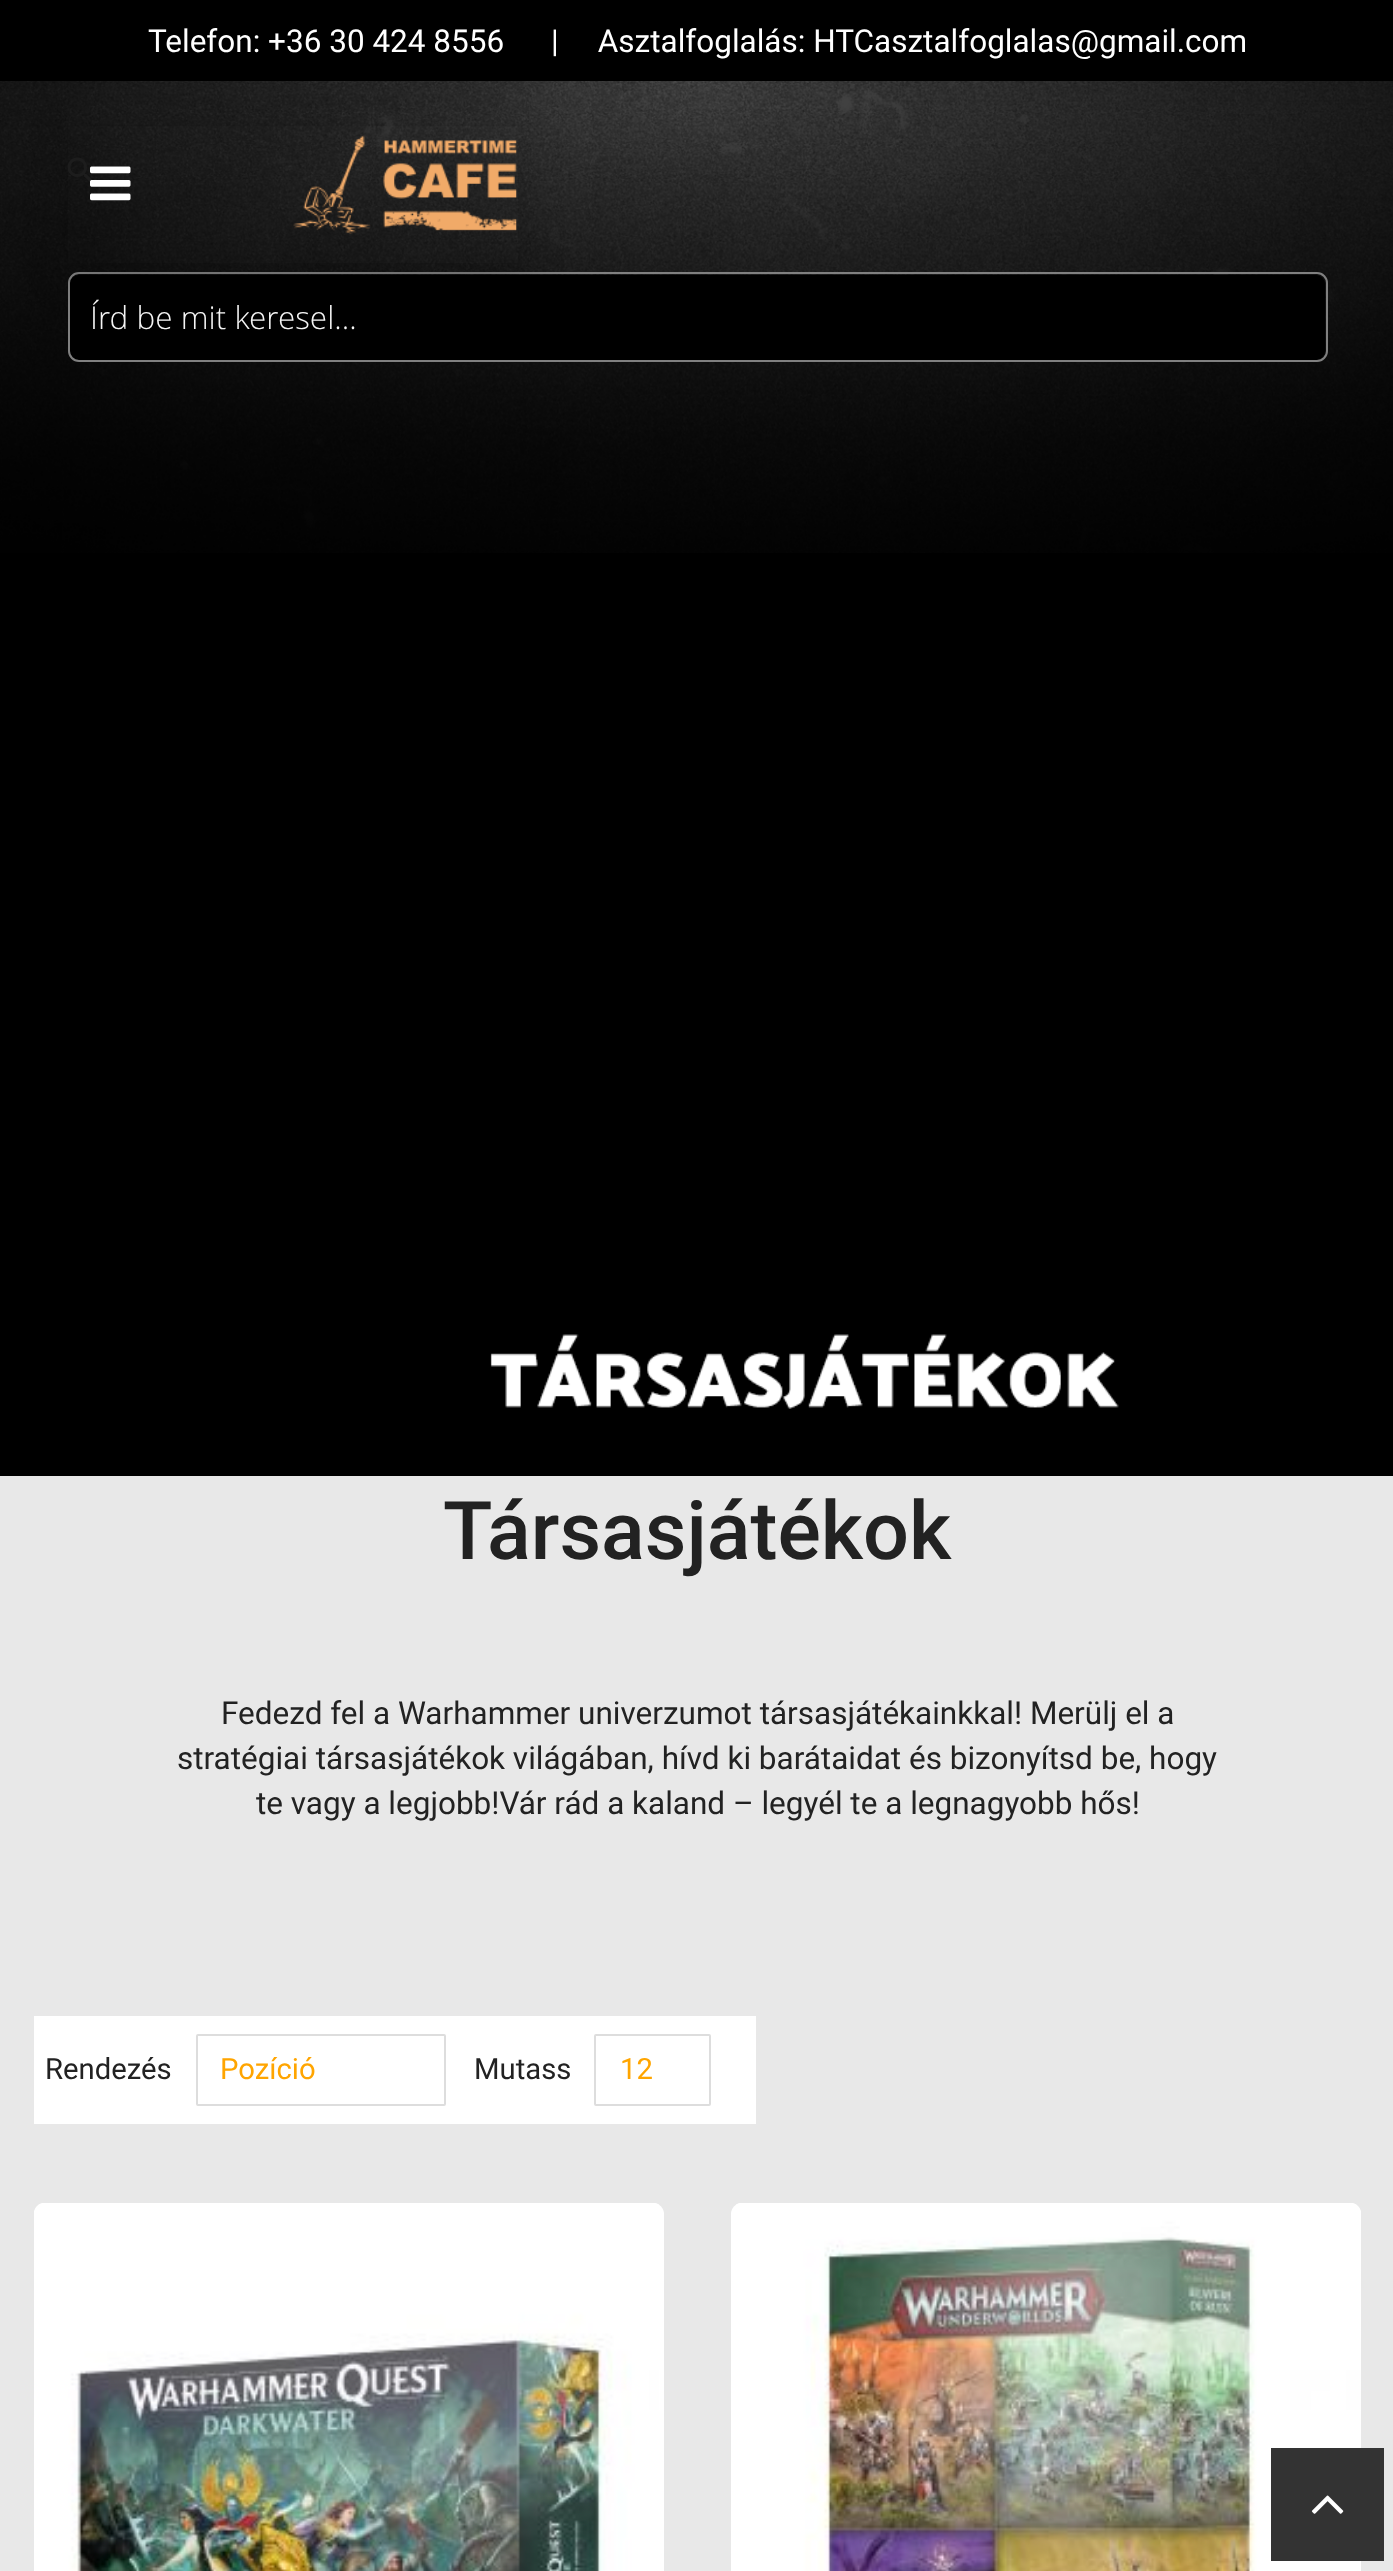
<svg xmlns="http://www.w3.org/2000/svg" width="1393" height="2571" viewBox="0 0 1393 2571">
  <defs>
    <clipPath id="clip1"><path d="M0 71H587V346H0ZM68 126H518V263H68Z" clip-rule="evenodd"/></clipPath>
  </defs>
  <rect width="100%" height="100%" fill="#e8e8e8"/>
  <path d="M0 0h1393v81H0z" fill="#000"/>
  <path d="M0 553h1393v923H0z" fill="#000"/>
  <image x="0" y="81" width="1393" height="472" href="img/1.png"/>
  <image x="67" y="157" width="26" height="26" href="img/4.png"/>
  <rect x="70" y="275" width="1255" height="85" rx="9" fill="#000"/>
  <rect x="69" y="273" width="1258" height="88" rx="10" fill="none" stroke="#808080" stroke-width="2"/>
  <g clip-path="url(#clip1)">
    <path d="M68 140h450v137H68z" fill="#0000002e" filter="blur(22.5px)"/>
  </g>
  <image x="90" y="166" width="41" height="35" href="img/2.png"/>
  <image x="293" y="135" width="224" height="99" href="img/3.png"/>
  <image x="490" y="1334" width="629" height="75" href="img/5.png"/>
  <path d="M34 2016h722v108H34z" fill="#fff"/>
  <rect x="197" y="2035" width="248" height="70" rx="1" fill="none" stroke="#ddd" stroke-width="2"/>
  <rect x="595" y="2035" width="115" height="70" rx="1" fill="none" stroke="#ddd" stroke-width="2"/>
  <rect x="34" y="2203" width="630" height="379" rx="11" fill="#fff"/>
  <image x="34" y="2203" width="625" height="368" href="img/6.png"/>
  <rect x="731" y="2203" width="630" height="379" rx="11" fill="#fff"/>
  <image x="736" y="2203" width="625" height="368" href="img/7.png"/>
  <path d="M1271 2448h113v113H1271z" fill="#333"/>
  <image x="1311" y="2495" width="33" height="19" href="img/8.png"/>
  <text x="148" y="52" font-family="Roboto" font-size="31.5" fill="#fff" xml:space="preserve">Telefon: +36 30 424 8556      |     Asztalfoglalás: HTCasztalfoglalas@gmail.com</text>
  <text x="90" y="329" font-family="Open Sans" font-size="31.5" font-weight="300" fill="#f5f5f5">Írd be mit keresel...</text>
  <text x="443" y="1559" font-family="Roboto" font-size="81" font-weight="500" fill="#222">Társasjátékok</text>
  <g font-family="Roboto" font-size="31.5" fill="#222">
    <text x="221" y="1724">Fedezd fel a Warhammer univerzumot társasjátékainkkal! Merülj el a</text>
    <text x="177" y="1769">stratégiai társasjátékok világában, hívd ki barátaidat és bizonyítsd be, hogy</text>
    <text x="256" y="1814">te vagy a legjobb!Vár rád a kaland – legyél te a legnagyobb hős!</text>
  </g>
  <text x="45" y="2079" font-family="Roboto" font-size="29.25" fill="#222">Rendezés</text>
  <text x="220" y="2079" font-family="Roboto" font-size="29.25" fill="#ffa500">Pozíció</text>
  <text x="474" y="2079" font-family="Roboto" font-size="29.25" fill="#222">Mutass</text>
  <text x="620" y="2079" font-family="Roboto" font-size="29.25" fill="#ffa500">12</text>
</svg>
